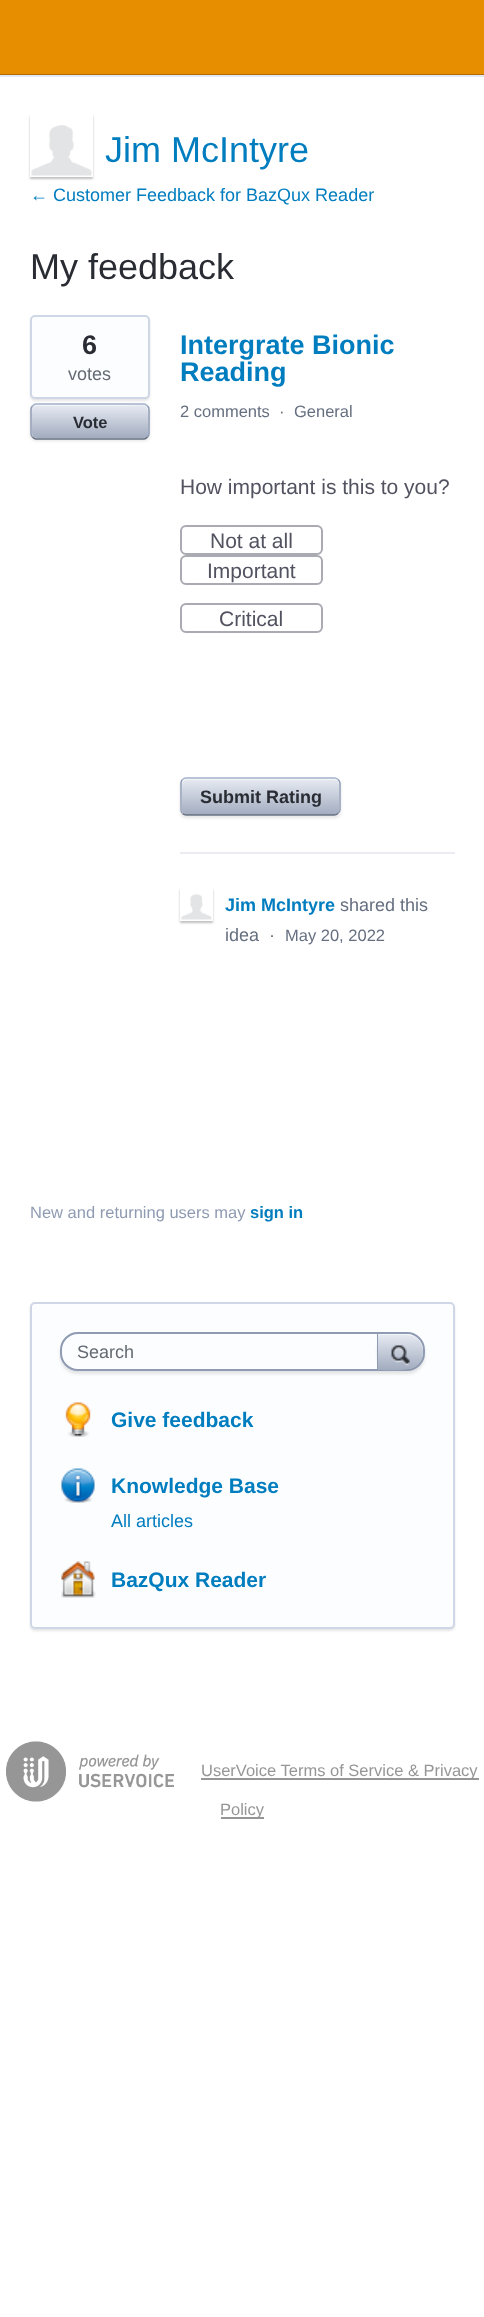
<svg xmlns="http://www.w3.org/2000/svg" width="484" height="2317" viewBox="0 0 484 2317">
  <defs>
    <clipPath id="clip1"><path d="M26 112H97V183H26ZM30 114H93V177H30Z" clip-rule="evenodd"/></clipPath>
    <linearGradient id="g1" gradientUnits="userSpaceOnUse" x1="32" y1="405" x2="32" y2="438"><stop offset="0" stop-color="#e6eaf2"/><stop offset="1" stop-color="#a2acbf"/></linearGradient>
    <clipPath id="clip2"><path d="M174 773H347V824H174ZM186 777H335C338.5 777 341 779.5 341 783V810C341 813.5 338.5 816 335 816H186C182.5 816 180 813.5 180 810V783C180 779.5 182.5 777 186 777Z" clip-rule="evenodd"/></clipPath>
    <linearGradient id="g2" gradientUnits="userSpaceOnUse" x1="182" y1="779" x2="182" y2="815"><stop offset="0" stop-color="#e6eaf2"/><stop offset="1" stop-color="#a2acbf"/></linearGradient>
    <clipPath id="clip3"><path d="M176 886H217V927H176ZM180 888H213V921H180Z" clip-rule="evenodd"/></clipPath>
    <clipPath id="clip4"><rect x="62" y="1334" width="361" height="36" rx="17"/></clipPath>
    <linearGradient id="g3" gradientUnits="userSpaceOnUse" x1="378" y1="1334" x2="378" y2="1370"><stop offset="0" stop-color="#e6eaf2"/><stop offset="1" stop-color="#a2acbf"/></linearGradient>
  </defs>
  <rect width="100%" height="100%" fill="#fff"/>
  <path d="M0 0h484v74H0z" fill="#e68e00"/>
  <path d="M0 74h484v1H0z" fill="#ad6b00"/>
  <path d="M0 75h484v2H0z" fill="#e3e8f2"/>
  <g clip-path="url(#clip1)">
    <path d="M30 116h63v63H30z" fill="#00000040" filter="blur(1px)"/>
  </g>
  <image x="31" y="125" width="61" height="51" href="img/1.png"/>
  <rect x="30" y="317" width="120" height="84" rx="5" fill="#0000001a" filter="blur(1px)"/>
  <rect x="31" y="316" width="118" height="82" rx="4" fill="#fcfdff" stroke="#cfd7e6" stroke-width="2"/>
  <rect x="30" y="405" width="120" height="36" rx="6" fill="#0000001a" filter="blur(1.5px)"/>
  <rect x="32" y="405" width="117" height="33" rx="5" fill="url(#g1)"/>
  <path d="M36 406H126C147 406 148 402 148 419V436C150 433 149 425 149 422C149 401 150 405 126 405H55C50 405 32 400 32 411C32 409 34 406 36 406Z" fill="#ffffff80"/>
  <path d="M32.5 406C33.5 405 34.5 404 36 404H144C145.5 404 146.5 405 147.5 406" fill="none" stroke="#a3b1cc" stroke-width="1.5"/>
  <path d="M147.5 406C148.5 407 149 408 149 409.5V433.5C149 435 148.5 436 147.5 437" fill="none" stroke="#8f9bb3" stroke-width="1.5"/>
  <path d="M147.5 437C146.5 438 145.5 439 144 439H36C34.5 439 33.5 438 32.5 437" fill="none" stroke="#666f80" stroke-width="1.5"/>
  <path d="M32.5 437C31.5 436 31 435 31 433.5V409.5C31 408 31.5 407 32.5 406" fill="none" stroke="#8f9bb3" stroke-width="1.5"/>
  <path d="M180 852h275v2H180z" fill="#ebebf1"/>
  <rect x="181" y="526" width="141" height="28" rx="5" fill="none" stroke="#aaaab2" stroke-width="2"/>
  <rect x="181" y="556" width="141" height="28" rx="5" fill="none" stroke="#aaaab2" stroke-width="2"/>
  <rect x="181" y="604" width="141" height="28" rx="5" fill="none" stroke="#aaaab2" stroke-width="2"/>
  <g clip-path="url(#clip2)">
    <rect x="180" y="779" width="161" height="39" rx="6" fill="#0000001a" filter="blur(1.5px)"/>
  </g>
  <rect x="182" y="779" width="157" height="36" rx="5" fill="url(#g2)"/>
  <path d="M186 780H334C337 780 339 782 339 784C339 781 337 779 334 779H187C184 779 182 781 182 784C182 782 184 780 186 780Z" fill="#ffffff80"/>
  <path d="M182.5 779.5C183.5 778.5 184.5 778 186 778H334.5C336 778 337 778.5 338 779.5" fill="none" stroke="#a3b1cc" stroke-width="1.5"/>
  <path d="M338 779.5C339 780.5 340 781.5 340 783V810C340 811.5 339 812.5 338 813.5" fill="none" stroke="#8f9bb3" stroke-width="1.5"/>
  <path d="M338 813.5C337 814.5 336 815 334.5 815H186C184.5 815 183.5 814.5 182.5 813.5" fill="none" stroke="#666f80" stroke-width="1.5"/>
  <path d="M182.5 813.5C181.5 812.5 181 811.5 181 810V783C181 781.5 181.5 780.5 182.5 779.5" fill="none" stroke="#8f9bb3" stroke-width="1.5"/>
  <g clip-path="url(#clip3)">
    <path d="M180 890h33v33H180z" fill="#00000040" filter="blur(1px)"/>
  </g>
  <image x="181" y="894" width="31" height="26" href="img/2.png"/>
  <rect x="30" y="1304" width="425" height="327" rx="5" fill="#0000001a" filter="blur(1px)"/>
  <rect x="31" y="1303" width="423" height="325" rx="4" fill="#fcfdff" stroke="#cfd7e6" stroke-width="2"/>
  <rect x="60" y="1335" width="365" height="39" rx="18" fill="#0000001a" filter="blur(1.5px)"/>
  <rect x="61" y="1333" width="363" height="37" rx="17" fill="#fcfdff" stroke="#8f9bb3" stroke-width="2"/>
  <g clip-path="url(#clip4)">
    <rect x="377" y="1334" width="48" height="37" rx="18" fill="#0000001a" filter="blur(1.5px)"/>
  </g>
  <path d="M378 1334V1370C386 1370 407 1371 413 1368C429 1361 425 1334 406 1334Z" fill="url(#g3)"/>
  <path d="M378 1335H406C416 1335 423 1342 423 1352C423 1344 418 1336 409 1334H378Z" fill="#ffffff80"/>
  <path d="M416.5 1366.5C415 1367.5 412 1369.5 410 1369.5C418 1367.5 423 1359.5 423 1352C423 1357.5 421 1363 416.5 1366.5Z" fill="#8f9bb3"/>
  <path d="M377 1334h1v36H377z" fill="#8f9bb3"/>
  <image x="391" y="1345" width="19" height="21" href="img/3.png"/>
  <image x="65" y="1402" width="26" height="35" href="img/4.png"/>
  <image x="61" y="1468" width="34" height="35" href="img/5.png"/>
  <image x="61" y="1561" width="35" height="37" href="img/6.png"/>
  <image x="6" y="1741" width="168" height="61" href="img/7.png"/>
  <path d="M201 1778h278v2H201z" fill="#969696"/>
  <path d="M221 1817h43v2H221z" fill="#969696"/>
  <text x="105" y="162" font-family="Liberation Sans" font-size="36" fill="#007dbf">Jim McIntyre</text>
  <text x="30" y="201" font-family="Liberation Sans" font-size="18" fill="#007dbf">← Customer Feedback for BazQux Reader</text>
  <text x="30" y="279" font-family="Liberation Sans" font-size="36" fill="#292c33">My feedback</text>
  <text x="82" y="354" font-family="Liberation Sans" font-size="27" font-weight="bold" fill="#292c33">6</text>
  <text x="68" y="380" font-family="Liberation Sans" font-size="18" fill="#646b72">votes</text>
  <text x="73" y="428" font-family="Liberation Sans" font-size="16.5" font-weight="bold" fill="#292c33">Vote</text>
  <g font-family="Liberation Sans" font-size="27" font-weight="bold" fill="#007dbf">
    <text x="180" y="354">Intergrate Bionic</text>
    <text x="180" y="381">Reading</text>
  </g>
  <text x="180" y="417" font-family="Liberation Sans" font-size="16.5" fill="#666f80">2 comments</text>
  <text x="279" y="417" font-family="Liberation Sans" font-size="16.5" fill="#646b72">·</text>
  <text x="294" y="417" font-family="Liberation Sans" font-size="16.5" fill="#666f80">General</text>
  <g font-family="Liberation Sans" font-size="21" fill="#525260">
    <text x="180" y="494">How important is this to you?</text>
    <text x="210" y="548">Not at all</text>
    <text x="207" y="578">Important</text>
    <text x="219" y="626">Critical</text>
  </g>
  <text x="200" y="803" font-family="Liberation Sans" font-size="18" font-weight="bold" fill="#292c33">Submit Rating</text>
  <text x="225" y="911" font-family="Liberation Sans" font-size="18" font-weight="bold" fill="#007dbf">Jim McIntyre</text>
  <g font-family="Liberation Sans" font-size="18" fill="#666f80">
    <text x="340" y="911">shared this</text>
    <text x="225" y="941">idea</text>
  </g>
  <text x="269" y="941" font-family="Liberation Sans" font-size="18" fill="#646b72">·</text>
  <text x="285" y="941" font-family="Liberation Sans" font-size="16.5" fill="#666f80">May 20, 2022</text>
  <text x="30" y="1218" font-family="Liberation Sans" font-size="16.5" fill="#8f9bb3">New and returning users may</text>
  <text x="250" y="1218" font-family="Liberation Sans" font-size="16.5" font-weight="bold" fill="#007dbf">sign in</text>
  <text x="77" y="1358" font-family="Liberation Sans" font-size="18" fill="#646b72">Search</text>
  <g font-family="Liberation Sans" font-size="21" font-weight="bold" fill="#007dbf">
    <text x="111" y="1427">Give feedback</text>
    <text x="111" y="1493">Knowledge Base</text>
  </g>
  <text x="111" y="1527" font-family="Liberation Sans" font-size="18" fill="#007dbf">All articles</text>
  <text x="111" y="1587" font-family="Liberation Sans" font-size="21" font-weight="bold" fill="#007dbf">BazQux Reader</text>
  <g font-family="Liberation Sans" font-size="16.5" fill="#969696">
    <text x="201" y="1776">UserVoice Terms of Service &amp; Privacy</text>
    <text x="220" y="1815">Policy</text>
  </g>
</svg>
